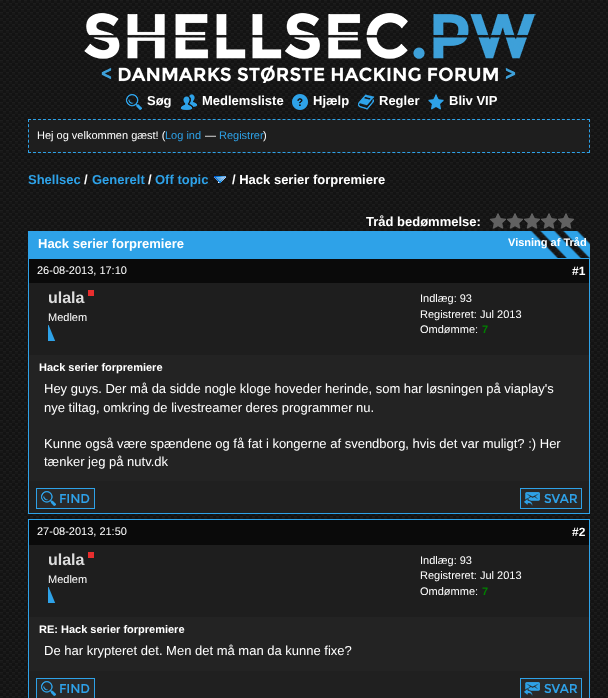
<svg xmlns="http://www.w3.org/2000/svg" width="608" height="698" viewBox="0 0 608 698">
  <rect width="100%" height="100%" fill="#fff"/>
  <image x="0" y="0" width="608" height="698" href="img/1.png"/>
  <image x="84" y="13" width="452" height="70" href="img/2.png"/>
  <image x="126" y="94" width="16" height="16" href="img/3.png"/>
  <image x="181" y="94" width="16" height="16" href="img/4.png"/>
  <image x="292" y="94" width="16" height="16" href="img/5.png"/>
  <image x="358" y="94" width="16" height="16" href="img/6.png"/>
  <image x="428" y="94" width="16" height="16" href="img/7.png"/>
  <path d="M28 119h562v34H28z" fill="#1e1e1e"/>
  <path d="M28 119.5H590" fill="none" stroke="#2ea2e8" stroke-dasharray="3 1.99"/>
  <path d="M589.5 119V153" fill="none" stroke="#2ea2e8" stroke-dasharray="3 2.17"/>
  <path d="M28 152.5H590" fill="none" stroke="#2ea2e8" stroke-dasharray="3 1.99"/>
  <path d="M28.5 119V153" fill="none" stroke="#2ea2e8" stroke-dasharray="3 2.17"/>
  <image x="214" y="176" width="12" height="7" href="img/8.png"/>
  <image x="490" y="213" width="84" height="16" href="img/9.png"/>
  <image x="28" y="231" width="562" height="27" href="img/10.png"/>
  <path d="M29 259h560v24H29z" fill="#0a0a0a"/>
  <path d="M28 258h562v1H28z" fill="#2ea2e8"/>
  <path d="M589 258h1v256H589z" fill="#2ea2e8"/>
  <path d="M28 258h1v223H28z" fill="#2ea2e8"/>
  <path d="M29 283h560v72H29z" fill="#1e1e1e"/>
  <path d="M88 290h6v6H88z" fill="#e82e2e"/>
  <image x="48" y="325" width="8" height="16" href="img/11.png"/>
  <path d="M29 355h560v126H29z" fill="#232323"/>
  <path d="M29 481h560v32H29z" fill="#202020"/>
  <path d="M28 513h562v1H28z" fill="#2ea2e8"/>
  <path d="M28 481h1v33H28z" fill="#2ea2e8"/>
  <image x="36" y="488" width="59" height="21" href="img/12.png"/>
  <image x="520" y="488" width="62" height="21" href="img/13.png"/>
  <path d="M29 520h560v25H29z" fill="#0a0a0a"/>
  <path d="M28 519h562v1H28z" fill="#2ea2e8"/>
  <path d="M589 519h1v179H589z" fill="#2ea2e8"/>
  <path d="M28 519h1v179H28z" fill="#2ea2e8"/>
  <path d="M29 545h560v72H29z" fill="#1e1e1e"/>
  <path d="M88 552h6v6H88z" fill="#e82e2e"/>
  <image x="48" y="587" width="8" height="16" href="img/11.png"/>
  <path d="M29 617h560v54H29z" fill="#232323"/>
  <path d="M29 671h560v27H29z" fill="#202020"/>
  <image x="36" y="678" width="59" height="20" href="img/14.png"/>
  <image x="520" y="678" width="62" height="20" href="img/15.png"/>
  <g font-family="Liberation Sans" font-size="13" font-weight="bold" fill="#fff">
    <text x="147" y="105">Søg</text>
    <text x="202" y="105">Medlemsliste</text>
    <text x="313" y="105">Hjælp</text>
    <text x="379" y="105">Regler</text>
    <text x="449" y="105">Bliv VIP</text>
  </g>
  <text x="37" y="139" font-family="Liberation Sans" font-size="11" fill="#fff">Hej og velkommen gæst! (</text>
  <text x="165" y="139" font-family="Liberation Sans" font-size="11" fill="#2ea2e8">Log ind</text>
  <text x="205" y="139" font-family="Liberation Sans" font-size="11" fill="#fff">—</text>
  <text x="219" y="139" font-family="Liberation Sans" font-size="11" fill="#2ea2e8">Registrer</text>
  <text x="263" y="139" font-family="Liberation Sans" font-size="11" fill="#fff">)</text>
  <text x="28" y="184" font-family="Liberation Sans" font-size="13" font-weight="bold" fill="#2ea2e8">Shellsec</text>
  <text x="84" y="184" font-family="Liberation Sans" font-size="13" font-weight="bold" fill="#fff">/</text>
  <text x="92" y="184" font-family="Liberation Sans" font-size="13" font-weight="bold" fill="#2ea2e8">Generelt</text>
  <text x="148" y="184" font-family="Liberation Sans" font-size="13" font-weight="bold" fill="#fff">/</text>
  <text x="155" y="184" font-family="Liberation Sans" font-size="13" font-weight="bold" fill="#2ea2e8">Off topic</text>
  <g font-family="Liberation Sans" font-size="13" font-weight="bold" fill="#fff">
    <text x="232" y="184">/ Hack serier forpremiere</text>
    <text x="366" y="226">Tråd bedømmelse:</text>
    <text x="38" y="248">Hack serier forpremiere</text>
  </g>
  <text x="508" y="246" font-family="Liberation Sans" font-size="11" font-weight="bold" fill="#fff">Visning af Tråd</text>
  <text x="37" y="274" font-family="Liberation Sans" font-size="11" fill="#fff">26-08-2013, 17:10</text>
  <text x="572" y="275" font-family="Liberation Sans" font-size="12" font-weight="bold" fill="#fff">#1</text>
  <text x="48" y="303" font-family="Liberation Sans" font-size="16" font-weight="bold" fill="#ddd">ulala</text>
  <g font-family="Liberation Sans" font-size="11" fill="#fff">
    <text x="48" y="321">Medlem</text>
    <text x="420" y="302">Indlæg: 93</text>
    <text x="420" y="318">Registreret: Jul 2013</text>
    <text x="420" y="333">Omdømme:</text>
  </g>
  <text x="482" y="333" font-family="Liberation Sans" font-size="11" font-weight="bold" fill="#008000">7</text>
  <text x="39" y="371" font-family="Liberation Sans" font-size="11" font-weight="bold" fill="#fff">Hack serier forpremiere</text>
  <g font-family="Liberation Sans" font-size="13" fill="#fff">
    <text x="44" y="393">Hey guys. Der må da sidde nogle kloge hoveder herinde, som har løsningen på viaplay's</text>
    <text x="44" y="412">nye tiltag, omkring de livestreamer deres programmer nu.</text>
    <text x="44" y="448">Kunne også være spændene og få fat i kongerne af svendborg, hvis det var muligt? :) Her</text>
    <text x="44" y="466">tænker jeg på nutv.dk</text>
  </g>
  <text x="37" y="535" font-family="Liberation Sans" font-size="11" fill="#fff">27-08-2013, 21:50</text>
  <text x="572" y="536" font-family="Liberation Sans" font-size="12" font-weight="bold" fill="#fff">#2</text>
  <text x="48" y="565" font-family="Liberation Sans" font-size="16" font-weight="bold" fill="#ddd">ulala</text>
  <g font-family="Liberation Sans" font-size="11" fill="#fff">
    <text x="48" y="583">Medlem</text>
    <text x="420" y="564">Indlæg: 93</text>
    <text x="420" y="579">Registreret: Jul 2013</text>
    <text x="420" y="595">Omdømme:</text>
  </g>
  <text x="482" y="595" font-family="Liberation Sans" font-size="11" font-weight="bold" fill="#008000">7</text>
  <text x="39" y="633" font-family="Liberation Sans" font-size="11" font-weight="bold" fill="#fff">RE: Hack serier forpremiere</text>
  <text x="44" y="655" font-family="Liberation Sans" font-size="13" fill="#fff">De har krypteret det. Men det må man da kunne fixe?</text>
</svg>
